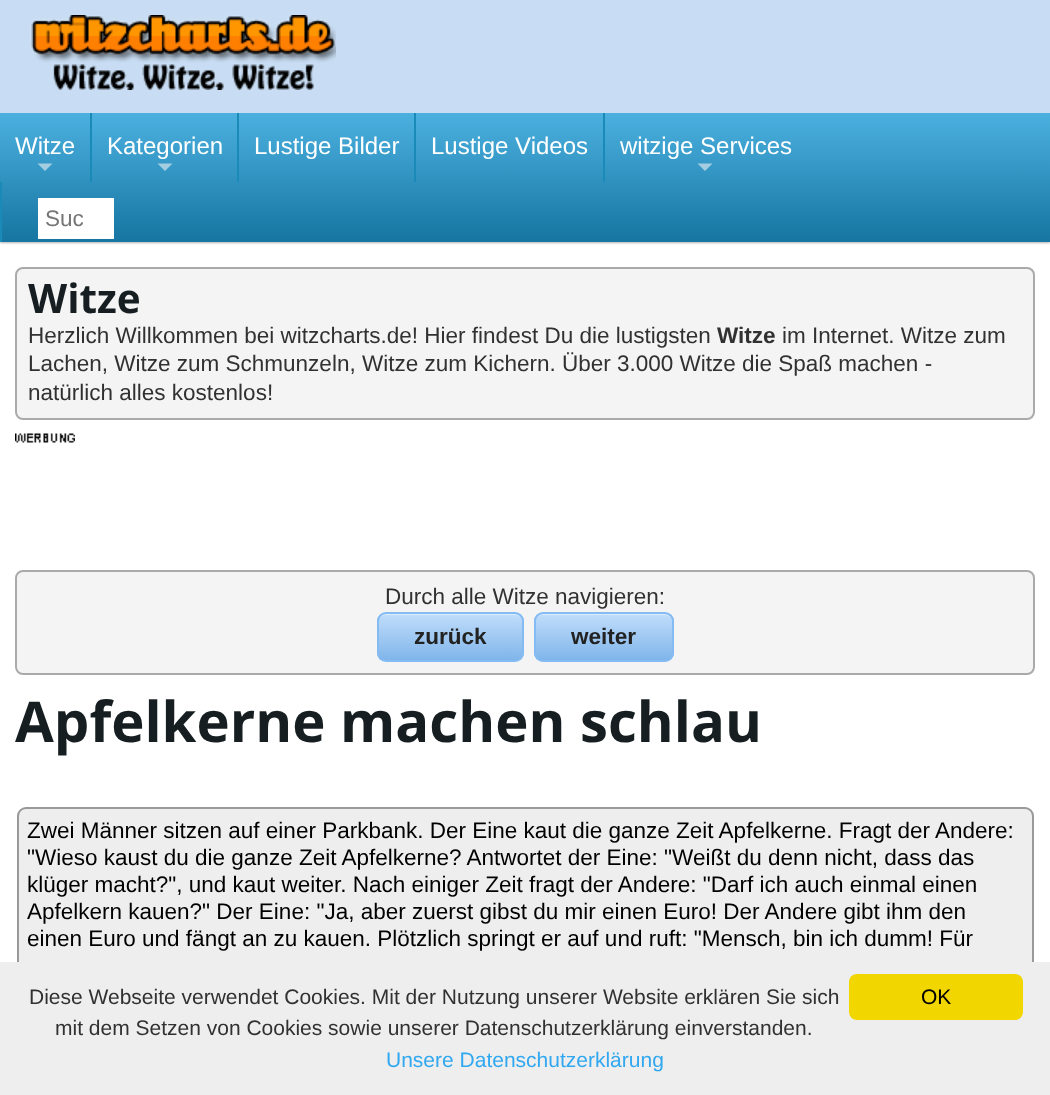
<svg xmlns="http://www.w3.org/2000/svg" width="1050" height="1095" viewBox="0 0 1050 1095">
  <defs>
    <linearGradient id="g1" gradientUnits="userSpaceOnUse" x1="525" y1="112" x2="525" y2="242"><stop offset="0" stop-color="#4cb1e0"/><stop offset="1" stop-color="#1675a1"/></linearGradient>
    <clipPath id="clip1"><rect x="377" y="612" width="147" height="50" rx="9"/></clipPath>
    <linearGradient id="g2" gradientUnits="userSpaceOnUse" x1="378" y1="614" x2="378" y2="660"><stop offset="0.05" stop-color="#bddbfa"/><stop offset="1" stop-color="#80b5ea"/></linearGradient>
    <clipPath id="clip2"><rect x="534" y="612" width="140" height="50" rx="9"/></clipPath>
    <linearGradient id="g3" gradientUnits="userSpaceOnUse" x1="536" y1="614" x2="536" y2="660"><stop offset="0.05" stop-color="#bddbfa"/><stop offset="1" stop-color="#80b5ea"/></linearGradient>
  </defs>
  <rect width="100%" height="100%" fill="#fff"/>
  <path d="M0 114h1050v129H0z" fill="#0000004d" filter="blur(1px)"/>
  <path d="M0 0h1050v113H0z" fill="#c8ddf3"/>
  <image x="30" y="15" width="306" height="75" href="img/1.png"/>
  <path d="M0 113h1050v129H0z" fill="url(#g1)"/>
  <path d="M37.5 163.5H52.5L45 171Z" fill="#a4cde1"/>
  <path d="M90 113h2v69H90z" fill="#1a8bb9"/>
  <path d="M157.5 163.5H172.5L165 171Z" fill="#a4cde1"/>
  <path d="M237 113h2v69H237z" fill="#1a8bb9"/>
  <path d="M414 113h2v69H414z" fill="#1a8bb9"/>
  <path d="M603 113h2v69H603z" fill="#1a8bb9"/>
  <path d="M697.5 163.5H712.5L705 171Z" fill="#a4cde1"/>
  <path d="M0 182h2v60H0z" fill="#1a8bb9"/>
  <path d="M38 198h76v41H38z" fill="#fff"/>
  <rect x="15" y="267" width="1020" height="153" rx="8" fill="#f4f4f4"/>
  <rect x="16" y="268" width="1018" height="151" rx="7" fill="none" stroke="#0000004d" stroke-width="2"/>
  <image x="15" y="433" width="60" height="10" href="img/2.png"/>
  <rect x="15" y="570" width="1020" height="105" rx="8" fill="#f4f4f4"/>
  <rect x="16" y="571" width="1018" height="103" rx="7" fill="none" stroke="#0000004d" stroke-width="2"/>
  <g clip-path="url(#clip1)">
    <path d="M377 614h147v46H377z" fill="url(#g2)"/>
  </g>
  <path d="M386 615H514C519 615 522 618 522 622C522 618 518 614 514 614H386C382 614 378 618 378 622C378 618 381 615 386 615Z" fill="#dcecfb"/>
  <rect x="378" y="613" width="145" height="48" rx="8" fill="none" stroke="#84bbf3" stroke-width="2"/>
  <g clip-path="url(#clip2)">
    <path d="M534 614h140v46H534z" fill="url(#g3)"/>
  </g>
  <path d="M543 615H664C669 615 672 618 672 622C672 618 668 614 664 614H544C540 614 536 618 536 622C536 618 539 615 543 615Z" fill="#dcecfb"/>
  <rect x="535" y="613" width="138" height="48" rx="8" fill="none" stroke="#84bbf3" stroke-width="2"/>
  <rect x="18" y="808" width="1015" height="208" rx="8" fill="#eee" stroke="#999" stroke-width="2"/>
  <path d="M0 962h1050v133H0z" fill="#eee"/>
  <rect x="849" y="974" width="174" height="46" rx="8" fill="#f1d600"/>
  <g font-family="Liberation Sans" font-size="24" fill="#fff">
    <text x="15" y="154">Witze</text>
    <text x="107" y="154">Kategorien</text>
    <text x="254" y="154">Lustige Bilder</text>
    <text x="431" y="154">Lustige Videos</text>
    <text x="620" y="154">witzige Services</text>
  </g>
  <text x="45" y="226" font-family="Liberation Sans" font-size="22.5" fill="#757575">Suc</text>
  <text x="28" y="313" font-family="Open Sans" font-size="40.5" font-weight="bold" fill="#161e21">Witze</text>
  <text x="28" y="343" font-family="Liberation Sans" font-size="22.5" fill="#313131">Herzlich Willkommen bei witzcharts.de! Hier findest Du die lustigsten</text>
  <text x="717" y="343" font-family="Liberation Sans" font-size="22.5" font-weight="bold" fill="#313131">Witze</text>
  <g font-family="Liberation Sans" font-size="22.5" fill="#313131">
    <text x="782" y="343">im Internet. Witze zum</text>
    <text x="28" y="371">Lachen, Witze zum Schmunzeln, Witze zum Kichern. Über 3.000 Witze die Spaß machen -</text>
    <text x="28" y="400">natürlich alles kostenlos!</text>
    <text x="385" y="604">Durch alle Witze navigieren:</text>
  </g>
  <g font-family="Liberation Sans" font-size="22.5" font-weight="bold" fill="#222">
    <text x="414" y="644">zurück</text>
    <text x="571" y="644">weiter</text>
  </g>
  <text x="15" y="742" font-family="Open Sans" font-size="56.25" font-weight="bold" fill="#161e21">Apfelkerne machen schlau</text>
  <g font-family="Liberation Sans" font-size="22.5" fill="#000">
    <text x="27" y="838">Zwei Männer sitzen auf einer Parkbank. Der Eine kaut die ganze Zeit Apfelkerne. Fragt der Andere:</text>
    <text x="27" y="865">"Wieso kaust du die ganze Zeit Apfelkerne? Antwortet der Eine: "Weißt du denn nicht, dass das</text>
    <text x="27" y="892">klüger macht?", und kaut weiter. Nach einiger Zeit fragt der Andere: "Darf ich auch einmal einen</text>
    <text x="27" y="919">Apfelkern kauen?" Der Eine: "Ja, aber zuerst gibst du mir einen Euro! Der Andere gibt ihm den</text>
    <text x="27" y="946">einen Euro und fängt an zu kauen. Plötzlich springt er auf und ruft: "Mensch, bin ich dumm! Für</text>
  </g>
  <g font-family="Liberation Sans" font-size="21" fill="#313131">
    <text x="29" y="1004">Diese Webseite verwendet Cookies. Mit der Nutzung unserer Website erklären Sie sich</text>
    <text x="55" y="1035">mit dem Setzen von Cookies sowie unserer Datenschutzerklärung einverstanden.</text>
  </g>
  <text x="386" y="1067" font-family="Liberation Sans" font-size="21" fill="#31a8f0">Unsere Datenschutzerklärung</text>
  <text x="921" y="1004" font-family="Liberation Sans" font-size="21" fill="#000">OK</text>
</svg>
